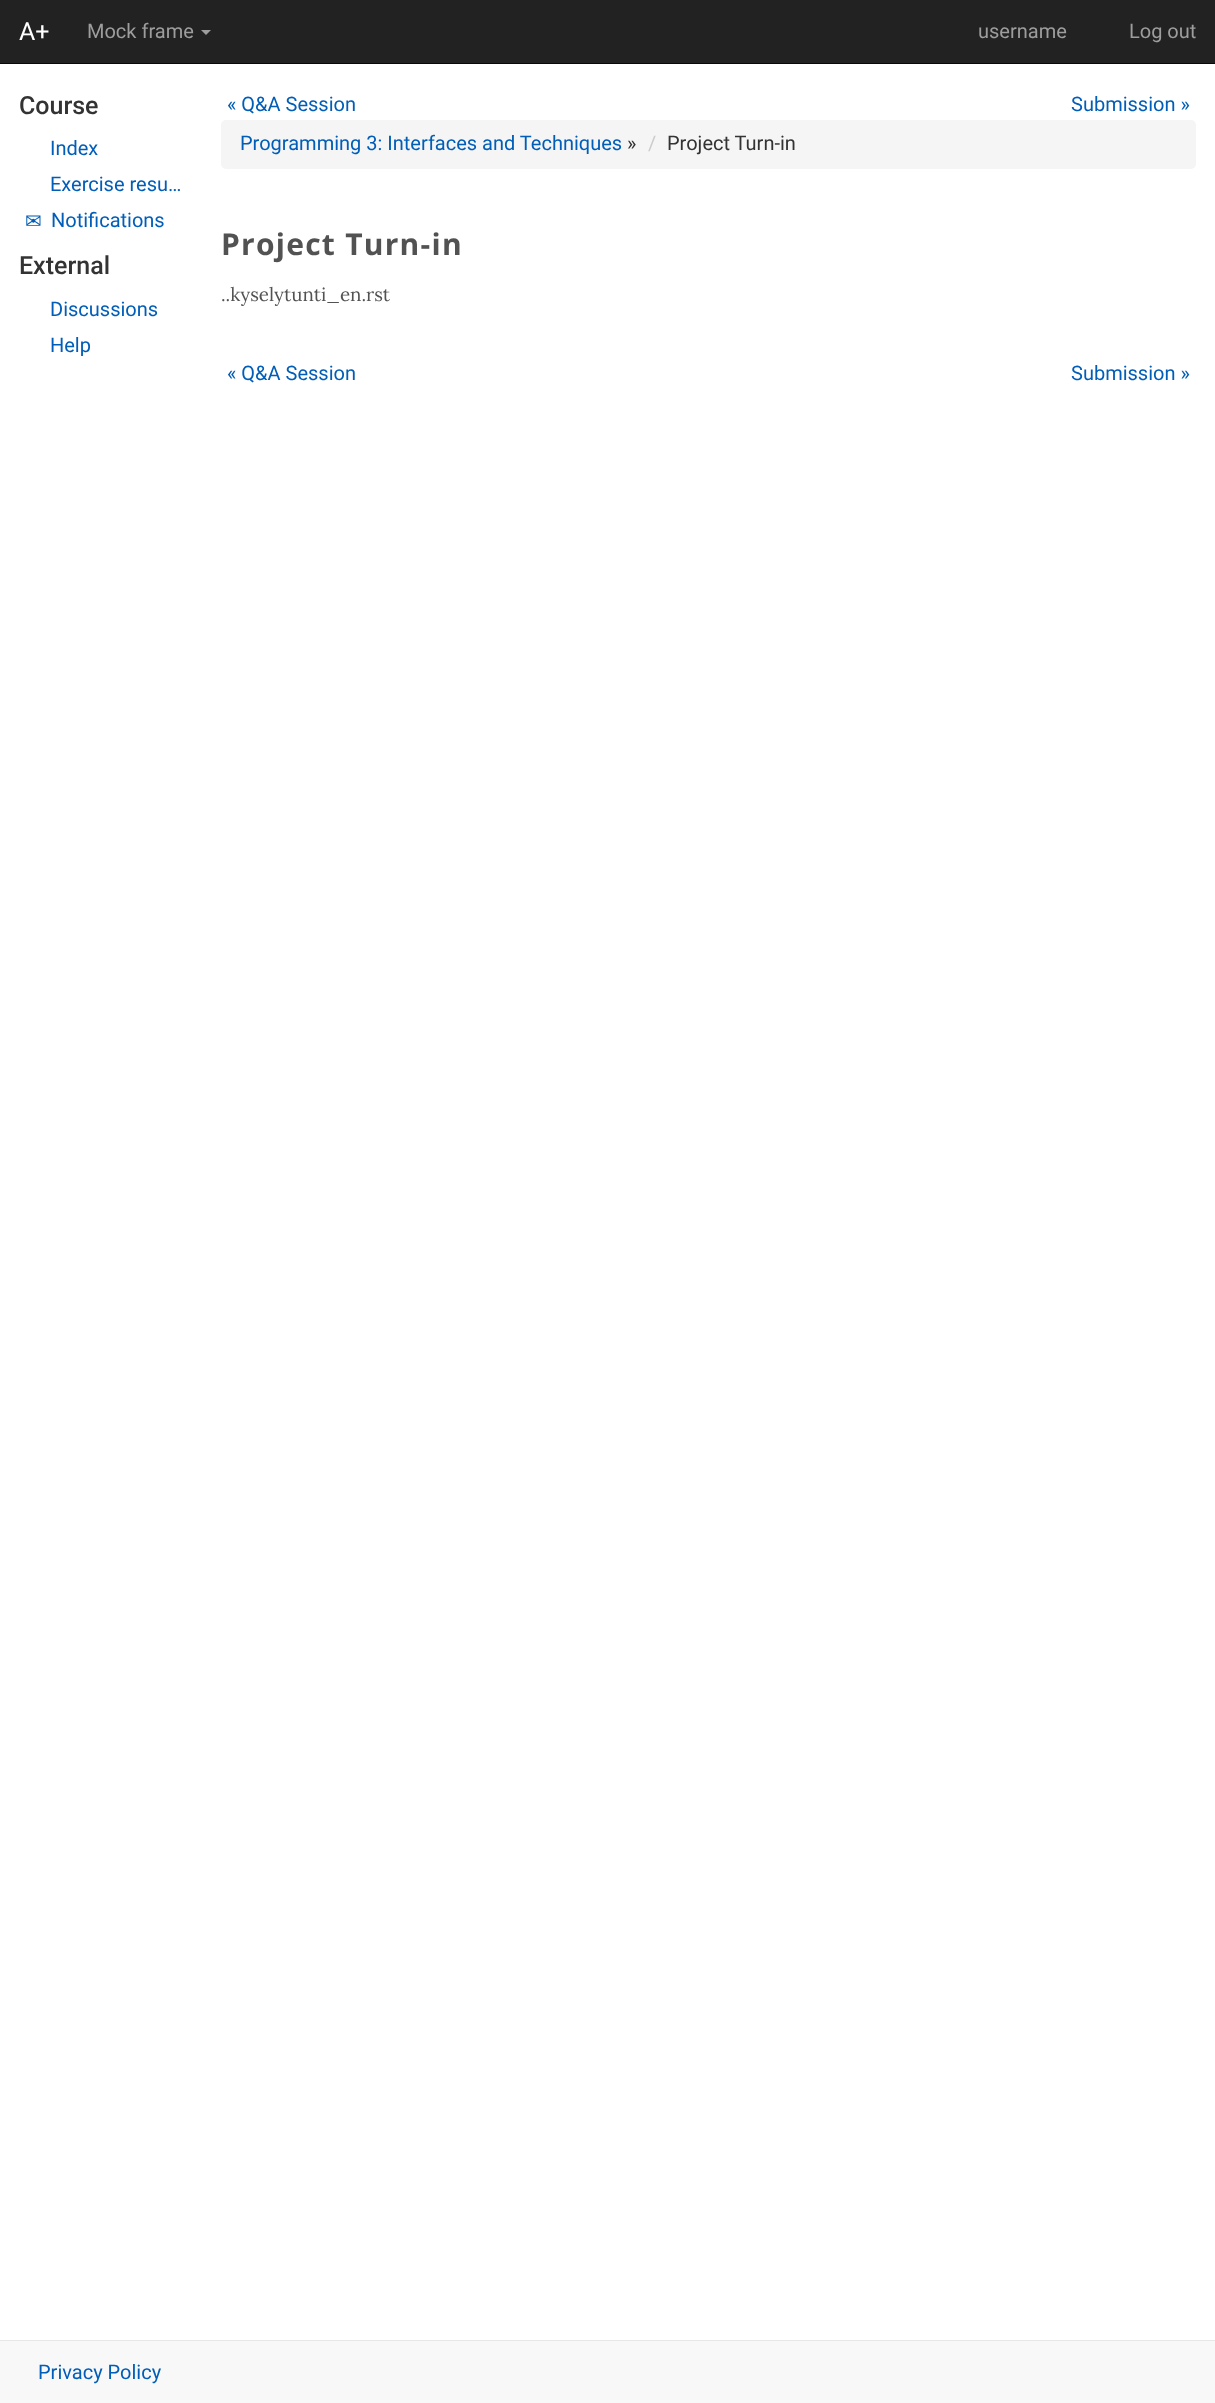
<svg xmlns="http://www.w3.org/2000/svg" width="1215" height="2403" viewBox="0 0 1215 2403">
  <rect width="100%" height="100%" fill="#fff"/>
  <path d="M0 0h1215v63H0z" fill="#222"/>
  <path d="M0 63h1215v1H0z" fill="#090909"/>
  <path d="M201 30H211L206 35Z" fill="#9d9d9d"/>
  <rect x="221" y="120" width="975" height="49" rx="5" fill="#f5f5f5"/>
  <path d="M0 2341h1215v62H0z" fill="#f8f8f8"/>
  <path d="M0 2340h1215v1H0z" fill="#e7e7e7"/>
  <text x="19" y="40" font-family="Roboto" font-size="25" fill="#fff">A+</text>
  <g font-family="Roboto" font-size="20" fill="#9d9d9d">
    <text x="87" y="38">Mock frame</text>
    <text x="978" y="38">username</text>
    <text x="1129" y="38">Log out</text>
  </g>
  <text x="19" y="114" font-family="Roboto" font-size="25" font-weight="500" fill="#333">Course</text>
  <g font-family="Roboto" font-size="20" fill="#005eb8">
    <text x="50" y="155">Index</text>
    <text x="50" y="191">Exercise resu…</text>
  </g>
  <text x="25" y="228" font-family="DejaVu Sans" font-size="20" fill="#005eb8">✉</text>
  <text x="51" y="227" font-family="Roboto" font-size="20" fill="#005eb8">Notifications</text>
  <text x="19" y="274" font-family="Roboto" font-size="25" font-weight="500" fill="#333">External</text>
  <g font-family="Roboto" font-size="20" fill="#005eb8">
    <text x="50" y="316">Discussions</text>
    <text x="50" y="352">Help</text>
    <text x="227" y="111">« Q&amp;A Session</text>
    <text x="1071" y="111">Submission »</text>
    <text x="240" y="150">Programming 3: Interfaces and Techniques</text>
  </g>
  <text x="627" y="150" font-family="Roboto" font-size="20" fill="#333">»</text>
  <text x="648" y="150" font-family="Roboto" font-size="20" fill="#ccc">/</text>
  <text x="667" y="150" font-family="Roboto" font-size="20" fill="#333">Project Turn-in</text>
  <text x="221" y="255" font-family="Open Sans" font-size="30" font-weight="bold" letter-spacing="1.25" fill="#525252">Project Turn-in</text>
  <text x="221" y="301" font-family="Lora" font-size="18.75" fill="#525252">..kyselytunti_en.rst</text>
  <g font-family="Roboto" font-size="20" fill="#005eb8">
    <text x="227" y="380">« Q&amp;A Session</text>
    <text x="1071" y="380">Submission »</text>
    <text x="38" y="2379">Privacy Policy</text>
  </g>
</svg>
